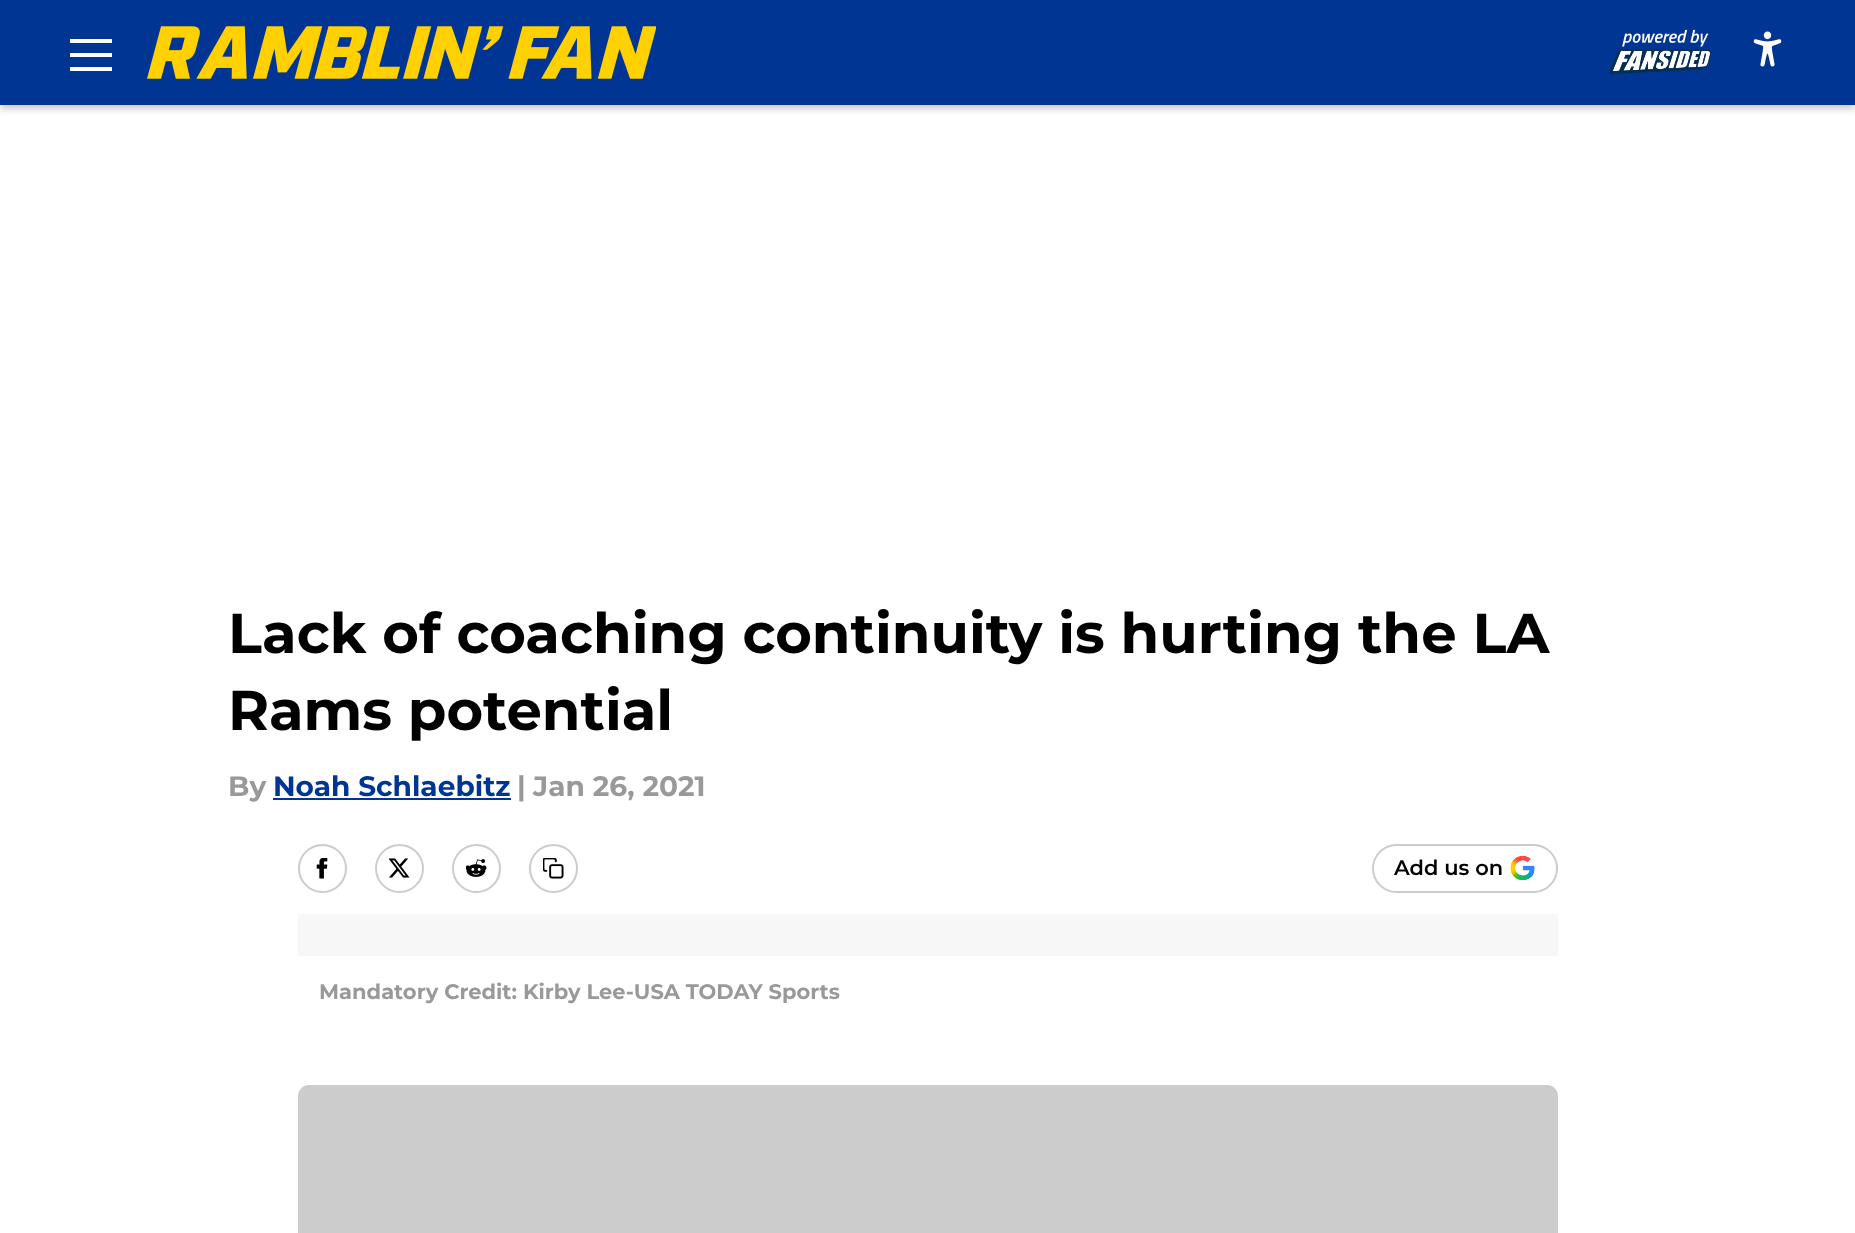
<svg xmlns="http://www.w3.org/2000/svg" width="1855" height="1233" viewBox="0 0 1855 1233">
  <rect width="100%" height="100%" fill="#fff"/>
  <path d="M0 4h1855v105H0z" fill="#00000033" filter="blur(3.5px)"/>
  <path d="M0 0h1855v105H0z" fill="#003594"/>
  <path d="M70 39h42v4H70z" fill="#fff"/>
  <path d="M70 53h42v4H70z" fill="#fff"/>
  <path d="M70 67h42v4H70z" fill="#fff"/>
  <image x="147" y="26" width="509" height="53" href="img/1.png"/>
  <image x="1608" y="29" width="104" height="46" href="img/2.png"/>
  <image x="1753" y="31" width="29" height="36" href="img/3.png"/>
  <path d="M273 798h238v2H273z" fill="#003594"/>
  <circle cx="322.5" cy="868.5" r="23.5" fill="none" stroke="#ccc" stroke-width="2"/>
  <image x="316" y="858" width="12" height="21" href="img/4.png"/>
  <circle cx="399.5" cy="868.5" r="23.5" fill="none" stroke="#ccc" stroke-width="2"/>
  <image x="389" y="858" width="21" height="20" href="img/5.png"/>
  <circle cx="476.5" cy="868.5" r="23.5" fill="none" stroke="#ccc" stroke-width="2"/>
  <image x="466" y="859" width="21" height="18" href="img/6.png"/>
  <circle cx="553.5" cy="868.5" r="23.5" fill="none" stroke="#ccc" stroke-width="2"/>
  <image x="543" y="858" width="21" height="21" href="img/7.png"/>
  <rect x="1373" y="845" width="184" height="47" rx="23.5" fill="none" stroke="#ccc" stroke-width="2"/>
  <image x="1510" y="856" width="25" height="24" href="img/8.png"/>
  <path d="M298 914h1260v42H298z" fill="#f7f7f7"/>
  <rect x="298" y="1085" width="1260" height="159" rx="11" fill="#ccc"/>
  <g font-family="'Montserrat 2'" font-size="56" font-weight="100" fill="#000">
    <text x="228" y="653">Lack of coaching continuity is hurting the LA</text>
    <text x="228" y="730">Rams potential</text>
  </g>
  <text x="228" y="796" font-family="'Montserrat 2'" font-size="28" font-weight="100" fill="#999">By</text>
  <text x="273" y="796" font-family="'Montserrat 2'" font-size="28" font-weight="100" fill="#003594">Noah Schlaebitz</text>
  <g font-family="'Montserrat 2'" font-size="28" font-weight="100" fill="#999">
    <text x="517" y="796">|</text>
    <text x="533" y="796">Jan 26, 2021</text>
  </g>
  <text x="1394" y="875" font-family="Montserrat" font-size="21" font-weight="100" fill="#000">Add us on</text>
  <text x="319" y="999" font-family="'Montserrat 2'" font-size="21" font-weight="100" fill="#999">Mandatory Credit: Kirby Lee-USA TODAY Sports</text>
</svg>
